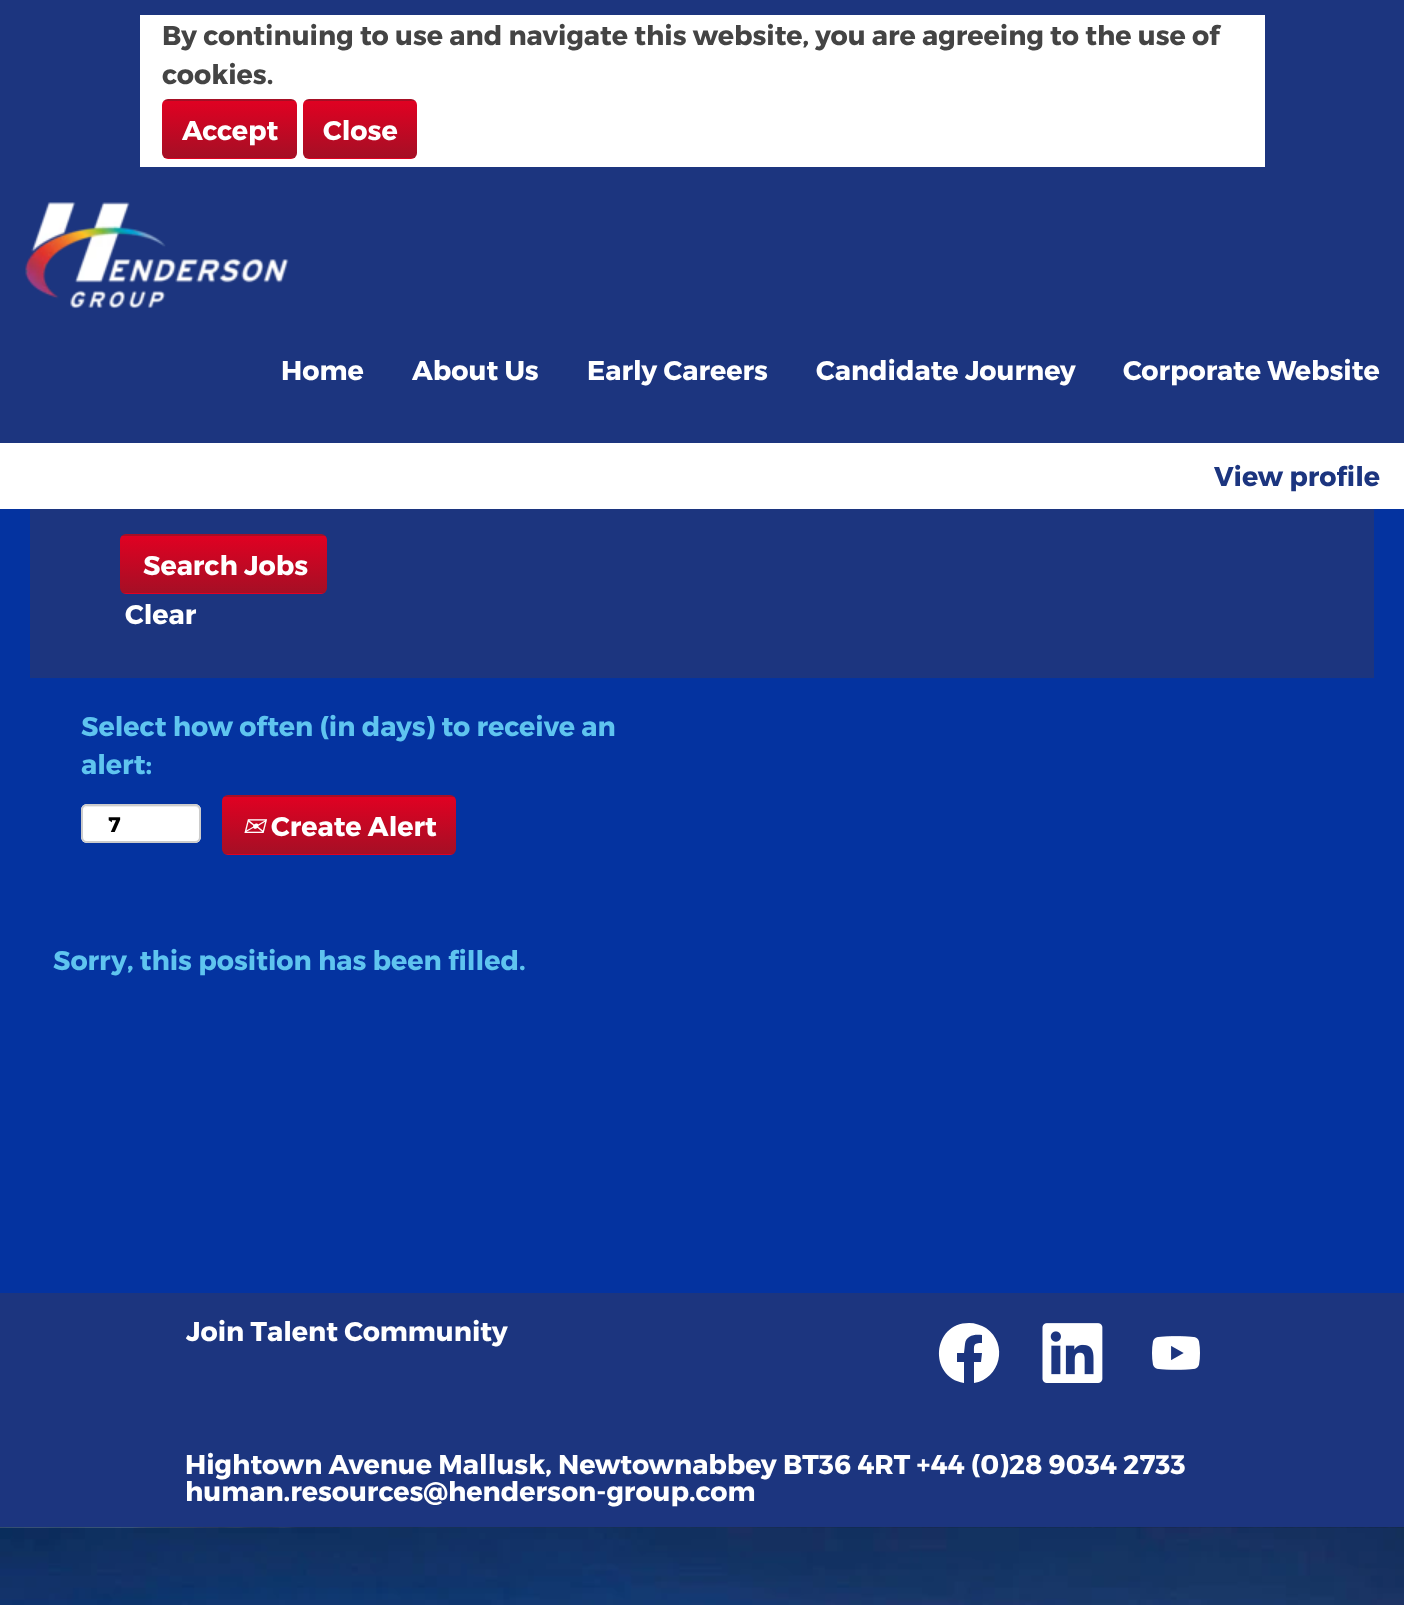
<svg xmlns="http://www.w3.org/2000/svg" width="1404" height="1605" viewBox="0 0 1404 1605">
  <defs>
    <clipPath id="clip1"><rect x="162" y="99" width="135" height="60" rx="6"/></clipPath>
    <linearGradient id="g1" gradientUnits="userSpaceOnUse" x1="230" y1="43" x2="230" y2="101"><stop offset="0" stop-color="#e00122"/><stop offset="1" stop-color="#a50f25"/></linearGradient>
    <linearGradient id="g2" gradientUnits="userSpaceOnUse" x1="230" y1="101" x2="230" y2="158"><stop offset="0" stop-color="#e00122"/><stop offset="1" stop-color="#a50f25"/></linearGradient>
    <linearGradient id="g3" gradientUnits="userSpaceOnUse" x1="230" y1="158" x2="230" y2="215"><stop offset="0" stop-color="#e00122"/><stop offset="1" stop-color="#a50f25"/></linearGradient>
    <clipPath id="clip2"><rect x="303" y="99" width="114" height="60" rx="6"/></clipPath>
    <linearGradient id="g4" gradientUnits="userSpaceOnUse" x1="360" y1="43" x2="360" y2="101"><stop offset="0" stop-color="#e00122"/><stop offset="1" stop-color="#a50f25"/></linearGradient>
    <linearGradient id="g5" gradientUnits="userSpaceOnUse" x1="360" y1="101" x2="360" y2="158"><stop offset="0" stop-color="#e00122"/><stop offset="1" stop-color="#a50f25"/></linearGradient>
    <linearGradient id="g6" gradientUnits="userSpaceOnUse" x1="360" y1="158" x2="360" y2="215"><stop offset="0" stop-color="#e00122"/><stop offset="1" stop-color="#a50f25"/></linearGradient>
    <clipPath id="clip3"><rect x="120" y="534" width="207" height="60" rx="6"/></clipPath>
    <linearGradient id="g7" gradientUnits="userSpaceOnUse" x1="224" y1="479" x2="224" y2="536"><stop offset="0" stop-color="#e00122"/><stop offset="1" stop-color="#a50f25"/></linearGradient>
    <linearGradient id="g8" gradientUnits="userSpaceOnUse" x1="224" y1="536" x2="224" y2="593"><stop offset="0" stop-color="#e00122"/><stop offset="1" stop-color="#a50f25"/></linearGradient>
    <linearGradient id="g9" gradientUnits="userSpaceOnUse" x1="224" y1="593" x2="224" y2="650"><stop offset="0" stop-color="#e00122"/><stop offset="1" stop-color="#a50f25"/></linearGradient>
    <clipPath id="clip4"><rect x="222" y="795" width="234" height="60" rx="6"/></clipPath>
    <linearGradient id="g10" gradientUnits="userSpaceOnUse" x1="339" y1="740" x2="339" y2="797"><stop offset="0" stop-color="#e00122"/><stop offset="1" stop-color="#a50f25"/></linearGradient>
    <linearGradient id="g11" gradientUnits="userSpaceOnUse" x1="339" y1="797" x2="339" y2="854"><stop offset="0" stop-color="#e00122"/><stop offset="1" stop-color="#a50f25"/></linearGradient>
    <linearGradient id="g12" gradientUnits="userSpaceOnUse" x1="339" y1="854" x2="339" y2="911"><stop offset="0" stop-color="#e00122"/><stop offset="1" stop-color="#a50f25"/></linearGradient>
  </defs>
  <rect width="100%" height="100%" fill="#fff"/>
  <image x="0" y="1527" width="1404" height="78" href="img/1.png"/>
  <path d="M0 0h1404v443H0z" fill="#1c357f"/>
  <path d="M140 15h1125v152H140z" fill="#fff"/>
  <g clip-path="url(#clip1)">
    <path d="M162 99h135v2H162z" fill="url(#g1)"/>
    <path d="M162 101h135v57H162z" fill="url(#g2)"/>
    <path d="M162 158h135v1H162z" fill="url(#g3)"/>
  </g>
  <g clip-path="url(#clip2)">
    <path d="M303 99h114v2H303z" fill="url(#g4)"/>
    <path d="M303 101h114v57H303z" fill="url(#g5)"/>
    <path d="M303 158h114v1H303z" fill="url(#g6)"/>
  </g>
  <image x="25" y="202" width="264" height="107" href="img/2.png"/>
  <path d="M0 509h1404v784H0z" fill="#0433a0"/>
  <path d="M30 509h1344v169H30z" fill="#1c357f"/>
  <g clip-path="url(#clip3)">
    <path d="M120 534h207v2H120z" fill="url(#g7)"/>
    <path d="M120 536h207v57H120z" fill="url(#g8)"/>
    <path d="M120 593h207v1H120z" fill="url(#g9)"/>
  </g>
  <rect x="81" y="804" width="120" height="39" rx="6" fill="#fff"/>
  <path d="M87 807H195C197 807 200 809 200 812V811C200 808 198 806 195 806H88C86 806 85 807 84 808Z" fill="#ececec"/>
  <rect x="82" y="805" width="118" height="37" rx="5" fill="none" stroke="#ccc" stroke-width="2"/>
  <g clip-path="url(#clip4)">
    <path d="M222 795h234v2H222z" fill="url(#g10)"/>
    <path d="M222 797h234v57H222z" fill="url(#g11)"/>
    <path d="M222 854h234v1H222z" fill="url(#g12)"/>
  </g>
  <path d="M0 1293h1404v234H0z" fill="#1c357f"/>
  <path d="M969 1323C932 1323 928 1377 964 1383V1362H957V1353H964L965 1344C966 1335 975 1334 982 1335V1343C973 1343 974 1345 974 1353H982L981 1362H974V1383C1000 1379 1009 1344 986 1328C981 1325 975 1323 969 1323Z" fill="#fff"/>
  <image x="1042" y="1323" width="61" height="60" href="img/3.png"/>
  <image x="1152" y="1336" width="48" height="34" href="img/4.png"/>
  <g font-family="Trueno" font-size="27" font-weight="bold" fill="#444">
    <text x="162" y="45">By continuing to use and navigate this website, you are agreeing to the use of</text>
    <text x="162" y="84">cookies.</text>
  </g>
  <g font-family="Trueno" font-size="27" font-weight="bold" fill="#fff">
    <text x="182" y="140">Accept</text>
    <text x="323" y="140">Close</text>
    <text x="281" y="380">Home</text>
    <text x="412" y="380">About Us</text>
    <text x="587" y="380">Early Careers</text>
    <text x="816" y="380">Candidate Journey</text>
    <text x="1123" y="380">Corporate Website</text>
  </g>
  <text x="1214" y="486" font-family="Trueno" font-size="27" font-weight="bold" fill="#1c357f">View profile</text>
  <g font-family="Trueno" font-size="27" font-weight="bold" fill="#fff">
    <text x="143" y="575">Search Jobs</text>
    <text x="125" y="624">Clear</text>
  </g>
  <g font-family="Trueno" font-size="27" font-weight="bold" fill="#5fc4ef">
    <text x="81" y="736">Select how often (in days) to receive an</text>
    <text x="81" y="774">alert:</text>
  </g>
  <text x="108" y="832" font-family="Trueno" font-size="21" font-weight="bold" fill="#000">7</text>
  <text x="242" y="836" font-family="DejaVu Sans" font-size="27" font-style="italic" fill="#fff">✉</text>
  <text x="271" y="836" font-family="Trueno" font-size="27" font-weight="bold" fill="#fff">Create Alert</text>
  <text x="53" y="970" font-family="Trueno" font-size="27" font-weight="bold" fill="#5fc4ef">Sorry, this position has been filled.</text>
  <g font-family="Trueno" font-size="27" font-weight="bold" fill="#fff">
    <text x="186" y="1341">Join Talent Community</text>
    <text x="185" y="1474">Hightown Avenue Mallusk, Newtownabbey BT36 4RT +44 (0)28 9034 2733</text>
    <text x="185" y="1501">human.resources@henderson-group.com</text>
  </g>
</svg>
